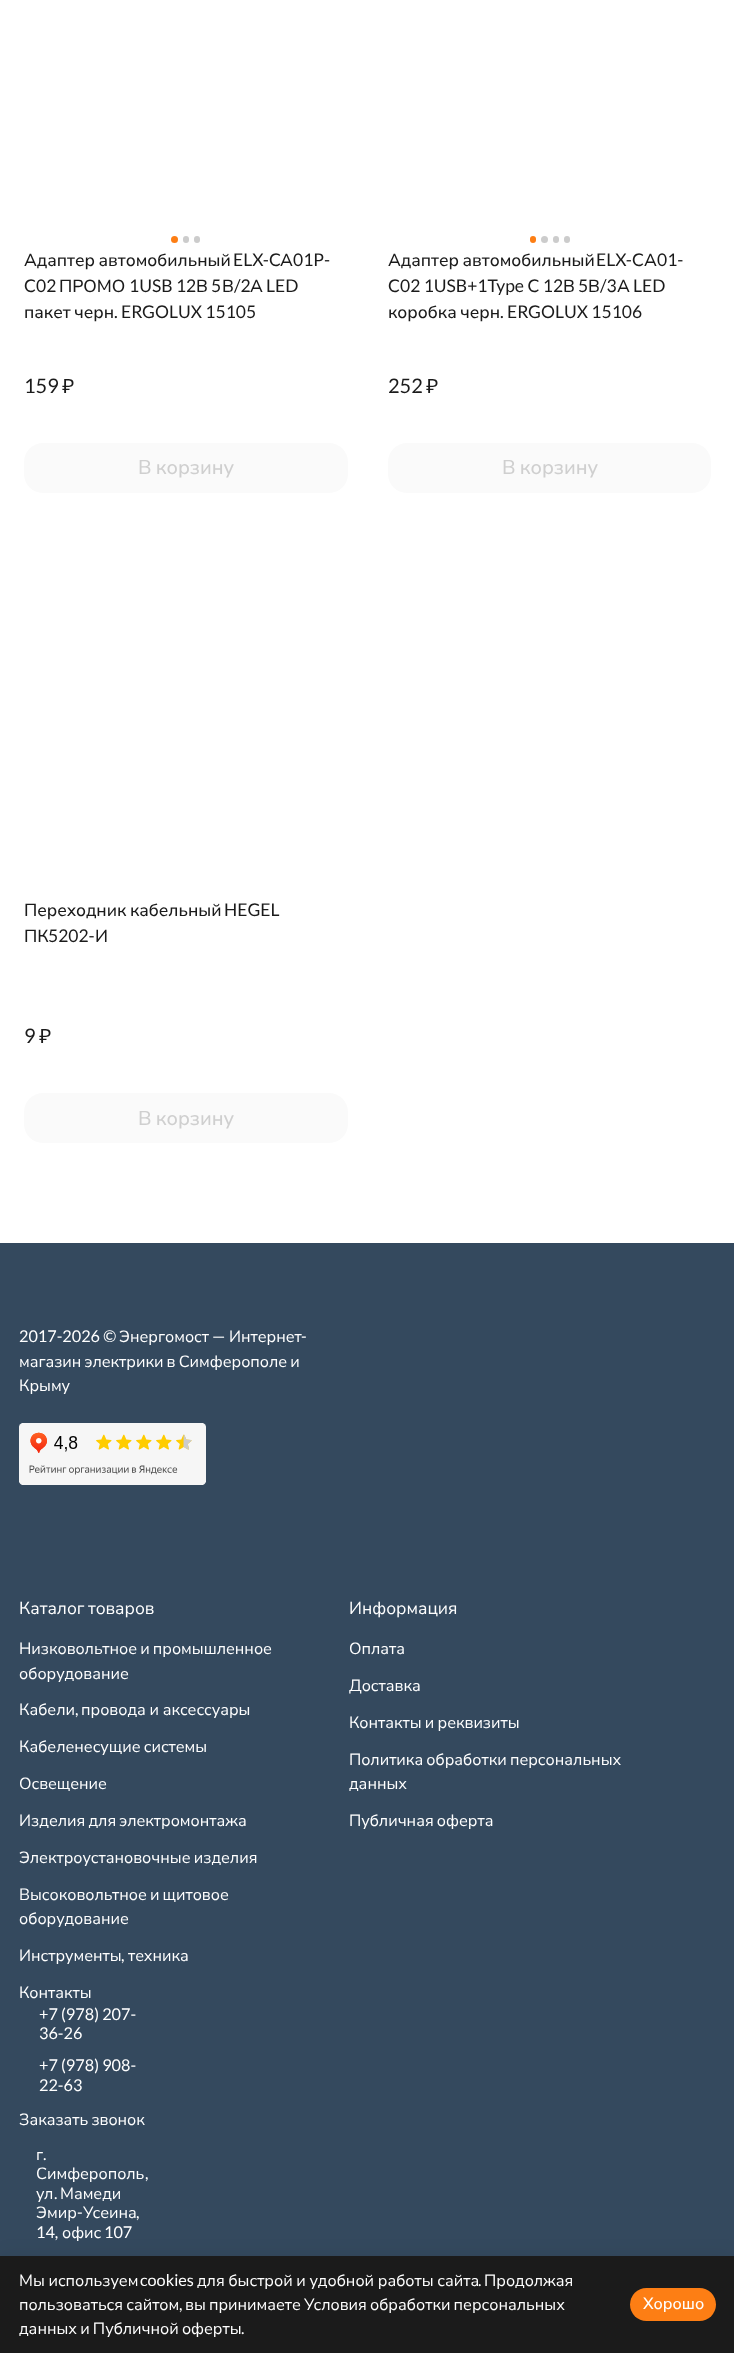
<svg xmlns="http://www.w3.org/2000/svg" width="734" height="2353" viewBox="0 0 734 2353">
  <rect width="100%" height="100%" fill="#fff"/>
  <circle cx="174.5" cy="239.5" r="3.5" fill="#fd7e14"/>
  <rect x="183" y="236" width="6" height="7" rx="3" fill="#ccc"/>
  <rect x="194" y="236" width="6" height="7" rx="3" fill="#ccc"/>
  <rect x="24" y="443" width="324" height="50" rx="19" fill="#fafafa"/>
  <rect x="530" y="236" width="6" height="7" rx="3" fill="#fd7e14"/>
  <circle cx="544.5" cy="239.5" r="3.5" fill="#ccc"/>
  <rect x="553" y="236" width="6" height="7" rx="3" fill="#ccc"/>
  <rect x="564" y="236" width="6" height="7" rx="3" fill="#ccc"/>
  <rect x="388" y="443" width="323" height="50" rx="19" fill="#fafafa"/>
  <rect x="24" y="1093" width="324" height="50" rx="19" fill="#fafafa"/>
  <path d="M0 1243h734v1013H0z" fill="#34495e"/>
  <image x="19" y="1423" width="187" height="62" href="img/1.png"/>
  <path d="M0 2256h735v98H0z" fill="#00000012" filter="blur(9.5px)"/>
  <path d="M0 2256h734v97H0z" fill="#1b1b1b"/>
  <rect x="630" y="2288" width="86" height="33" rx="16.5" fill="#fd7e14"/>
  <text x="24" y="266" word-spacing="-1" font-family="Nunito Sans" font-size="17.5" font-weight="500" fill="#1b1b1b">Адаптер автомобильный</text>
  <text x="233" y="266" font-family="Lato" font-size="17.5" fill="#1b1b1b">ELX-C</text>
  <text x="280" y="266" font-family="Nunito Sans" font-size="17.5" font-weight="500" fill="#1b1b1b">A</text>
  <g font-family="Lato" font-size="17.5" fill="#1b1b1b">
    <text x="293" y="266">01P-</text>
    <text x="24" y="292">C02</text>
  </g>
  <text x="59" y="292" font-family="Nunito Sans" font-size="17.5" font-weight="500" fill="#1b1b1b">ПРОМО</text>
  <text x="129" y="292" font-family="Lato" font-size="17.5" fill="#1b1b1b">1USB 12</text>
  <text x="196" y="292" font-family="Nunito Sans" font-size="17.5" font-weight="500" fill="#1b1b1b">В</text>
  <text x="211" y="292" font-family="Lato" font-size="17.5" fill="#1b1b1b">5</text>
  <text x="222" y="292" font-family="Nunito Sans" font-size="17.5" font-weight="500" fill="#1b1b1b">В</text>
  <text x="234" y="292" font-family="Lato" font-size="17.5" fill="#1b1b1b">/2</text>
  <text x="250" y="292" font-family="Nunito Sans" font-size="17.5" font-weight="500" fill="#1b1b1b">А</text>
  <text x="266" y="292" font-family="Lato" font-size="17.5" fill="#1b1b1b">LED</text>
  <g font-family="Nunito Sans" font-size="17.5" font-weight="500" fill="#1b1b1b">
    <text x="24" y="318">пакет</text>
    <text x="74" y="318">черн</text>
  </g>
  <text x="114" y="318" font-family="Lato" font-size="17.5" fill="#1b1b1b">. ERGOLUX 15105</text>
  <text x="24" y="393" font-family="Lato" font-size="20" fill="#1b1b1b">159</text>
  <text x="62" y="393" font-family="Nunito Sans" font-size="20" font-weight="500" fill="#1b1b1b">₽</text>
  <text x="138" y="474" word-spacing="-1" font-family="Nunito Sans" font-size="20" font-weight="500" fill="#cfcfcf">В корзину</text>
  <text x="388" y="266" word-spacing="-1" font-family="Nunito Sans" font-size="17.5" font-weight="500" fill="#1b1b1b">Адаптер автомобильный</text>
  <text x="596" y="266" font-family="Lato" font-size="17.5" fill="#1b1b1b">ELX-C</text>
  <text x="644" y="266" font-family="Nunito Sans" font-size="17.5" font-weight="500" fill="#1b1b1b">A</text>
  <g font-family="Lato" font-size="17.5" fill="#1b1b1b">
    <text x="657" y="266">01-</text>
    <text x="388" y="292">C02 1USB+1Type C 12</text>
  </g>
  <text x="563" y="292" font-family="Nunito Sans" font-size="17.5" font-weight="500" fill="#1b1b1b">В</text>
  <text x="578" y="292" font-family="Lato" font-size="17.5" fill="#1b1b1b">5</text>
  <text x="588" y="292" font-family="Nunito Sans" font-size="17.5" font-weight="500" fill="#1b1b1b">В</text>
  <text x="600" y="292" font-family="Lato" font-size="17.5" fill="#1b1b1b">/3</text>
  <text x="617" y="292" font-family="Nunito Sans" font-size="17.5" font-weight="500" fill="#1b1b1b">А</text>
  <text x="633" y="292" font-family="Lato" font-size="17.5" fill="#1b1b1b">LED</text>
  <g font-family="Nunito Sans" font-size="17.5" font-weight="500" fill="#1b1b1b">
    <text x="388" y="318">коробка</text>
    <text x="460" y="318">черн</text>
  </g>
  <text x="500" y="318" font-family="Lato" font-size="17.5" fill="#1b1b1b">. ERGOLUX 15106</text>
  <text x="388" y="393" font-family="Lato" font-size="20" fill="#1b1b1b">252</text>
  <text x="426" y="393" font-family="Nunito Sans" font-size="20" font-weight="500" fill="#1b1b1b">₽</text>
  <text x="502" y="474" word-spacing="-1" font-family="Nunito Sans" font-size="20" font-weight="500" fill="#cfcfcf">В корзину</text>
  <text x="24" y="916" word-spacing="-1" font-family="Nunito Sans" font-size="17.5" font-weight="500" fill="#1b1b1b">Переходник кабельный</text>
  <text x="224" y="916" font-family="Lato" font-size="17.5" fill="#1b1b1b">HEGEL</text>
  <text x="24" y="942" font-family="Nunito Sans" font-size="17.5" font-weight="500" fill="#1b1b1b">ПК</text>
  <text x="48" y="942" font-family="Lato" font-size="17.5" fill="#1b1b1b">5202-</text>
  <text x="95" y="942" font-family="Nunito Sans" font-size="17.5" font-weight="500" fill="#1b1b1b">И</text>
  <text x="24" y="1043" font-family="Lato" font-size="20" fill="#1b1b1b">9</text>
  <text x="39" y="1043" font-family="Nunito Sans" font-size="20" font-weight="500" fill="#1b1b1b">₽</text>
  <text x="138" y="1125" word-spacing="-1" font-family="Nunito Sans" font-size="20" font-weight="500" fill="#cfcfcf">В корзину</text>
  <text x="19" y="1342" font-family="Lato" font-size="16.25" fill="#fff">2017-2026 ©</text>
  <text x="119" y="1342" font-family="Nunito Sans" font-size="16.25" fill="#fff">Энергомост</text>
  <text x="212" y="1342" font-family="Lato" font-size="16.25" fill="#fff">—</text>
  <text x="229" y="1342" font-family="Nunito Sans" font-size="16.25" fill="#fff">Интернет</text>
  <text x="301" y="1342" font-family="Lato" font-size="16.25" fill="#fff">-</text>
  <g font-family="Nunito Sans" font-size="16.25" fill="#fff">
    <text x="19" y="1367" word-spacing="-1">магазин электрики в Симферополе и</text>
    <text x="19" y="1391">Крыму</text>
  </g>
  <text x="19" y="1614" word-spacing="-1" font-family="Nunito Sans" font-size="17.5" fill="#fff">Каталог товаров</text>
  <g font-family="Nunito Sans" font-size="16.25" fill="#fff">
    <text x="19" y="1654" word-spacing="-1">Низковольтное и промышленное</text>
    <text x="19" y="1679">оборудование</text>
    <text x="19" y="1715">Кабели</text>
  </g>
  <text x="75" y="1715" font-family="Lato" font-size="16.25" fill="#fff">,</text>
  <g font-family="Nunito Sans" font-size="16.25" fill="#fff">
    <text x="81" y="1715" word-spacing="-0.5">провода и аксессуары</text>
    <text x="19" y="1752" word-spacing="-1">Кабеленесущие системы</text>
    <text x="19" y="1789">Освещение</text>
    <text x="19" y="1826" word-spacing="-1">Изделия для электромонтажа</text>
    <text x="19" y="1863" word-spacing="-1">Электроустановочные изделия</text>
    <text x="19" y="1900" word-spacing="-1">Высоковольтное и щитовое</text>
    <text x="19" y="1924">оборудование</text>
    <text x="19" y="1961">Инструменты</text>
  </g>
  <text x="121" y="1961" font-family="Lato" font-size="16.25" fill="#fff">,</text>
  <text x="128" y="1961" font-family="Nunito Sans" font-size="16.25" fill="#fff">техника</text>
  <text x="349" y="1614" font-family="Nunito Sans" font-size="17.5" fill="#fff">Информация</text>
  <g font-family="Nunito Sans" font-size="16.25" fill="#fff">
    <text x="349" y="1654">Оплата</text>
    <text x="349" y="1691">Доставка</text>
    <text x="349" y="1728" word-spacing="-1">Контакты и реквизиты</text>
    <text x="349" y="1765" word-spacing="-1">Политика обработки персональных</text>
    <text x="349" y="1789">данных</text>
    <text x="349" y="1826" word-spacing="-1">Публичная оферта</text>
    <text x="19" y="1998">Контакты</text>
  </g>
  <g font-family="Lato" font-size="16.25" fill="#fff">
    <text x="39" y="2020">+7 (978) 207-</text>
    <text x="39" y="2039">36-26</text>
    <text x="39" y="2071">+7 (978) 908-</text>
    <text x="39" y="2091">22-63</text>
  </g>
  <g font-family="Nunito Sans" font-size="16.25" fill="#fff">
    <text x="19" y="2125" word-spacing="-1">Заказать звонок</text>
    <text x="36" y="2160">г</text>
  </g>
  <text x="43" y="2160" font-family="Lato" font-size="16.25" fill="#fff">.</text>
  <text x="36" y="2179" font-family="Nunito Sans" font-size="16.25" fill="#fff">Симферополь</text>
  <text x="145" y="2179" font-family="Lato" font-size="16.25" fill="#fff">,</text>
  <text x="36" y="2199" font-family="Nunito Sans" font-size="16.25" fill="#fff">ул</text>
  <text x="54" y="2199" font-family="Lato" font-size="16.25" fill="#fff">.</text>
  <g font-family="Nunito Sans" font-size="16.25" fill="#fff">
    <text x="60" y="2199">Мамеди</text>
    <text x="36" y="2218">Эмир</text>
  </g>
  <text x="77" y="2218" font-family="Lato" font-size="16.25" fill="#fff">-</text>
  <text x="83" y="2218" font-family="Nunito Sans" font-size="16.25" fill="#fff">Усеина</text>
  <g font-family="Lato" font-size="16.25" fill="#fff">
    <text x="136" y="2218">,</text>
    <text x="36" y="2238">14,</text>
  </g>
  <text x="62" y="2238" font-family="Nunito Sans" font-size="16.25" fill="#fff">офис</text>
  <text x="104" y="2238" font-family="Lato" font-size="16.25" fill="#fff">107</text>
  <text x="19" y="2286" word-spacing="-0.5" font-family="Nunito Sans" font-size="16.25" fill="#fff">Мы используем</text>
  <text x="140" y="2286" font-family="Lato" font-size="16.25" fill="#fff">cookies</text>
  <text x="197" y="2286" word-spacing="-0.5" font-family="Nunito Sans" font-size="16.25" fill="#fff">для быстрой и удобной работы сайта</text>
  <text x="478" y="2286" font-family="Lato" font-size="16.25" fill="#fff">.</text>
  <g font-family="Nunito Sans" font-size="16.25" fill="#fff">
    <text x="484" y="2286">Продолжая</text>
    <text x="19" y="2310" word-spacing="-1">пользоваться сайтом</text>
  </g>
  <text x="179" y="2310" font-family="Lato" font-size="16.25" fill="#fff">,</text>
  <g font-family="Nunito Sans" font-size="16.25" fill="#fff">
    <text x="185" y="2310" word-spacing="-1">вы принимаете Условия обработки персональных</text>
    <text x="19" y="2334" word-spacing="-1">данных и Публичной оферты</text>
  </g>
  <text x="241" y="2334" font-family="Lato" font-size="16.25" fill="#fff">.</text>
  <text x="643" y="2309" font-family="Nunito Sans" font-size="16.25" font-weight="500" fill="#fff">Хорошо</text>
</svg>
